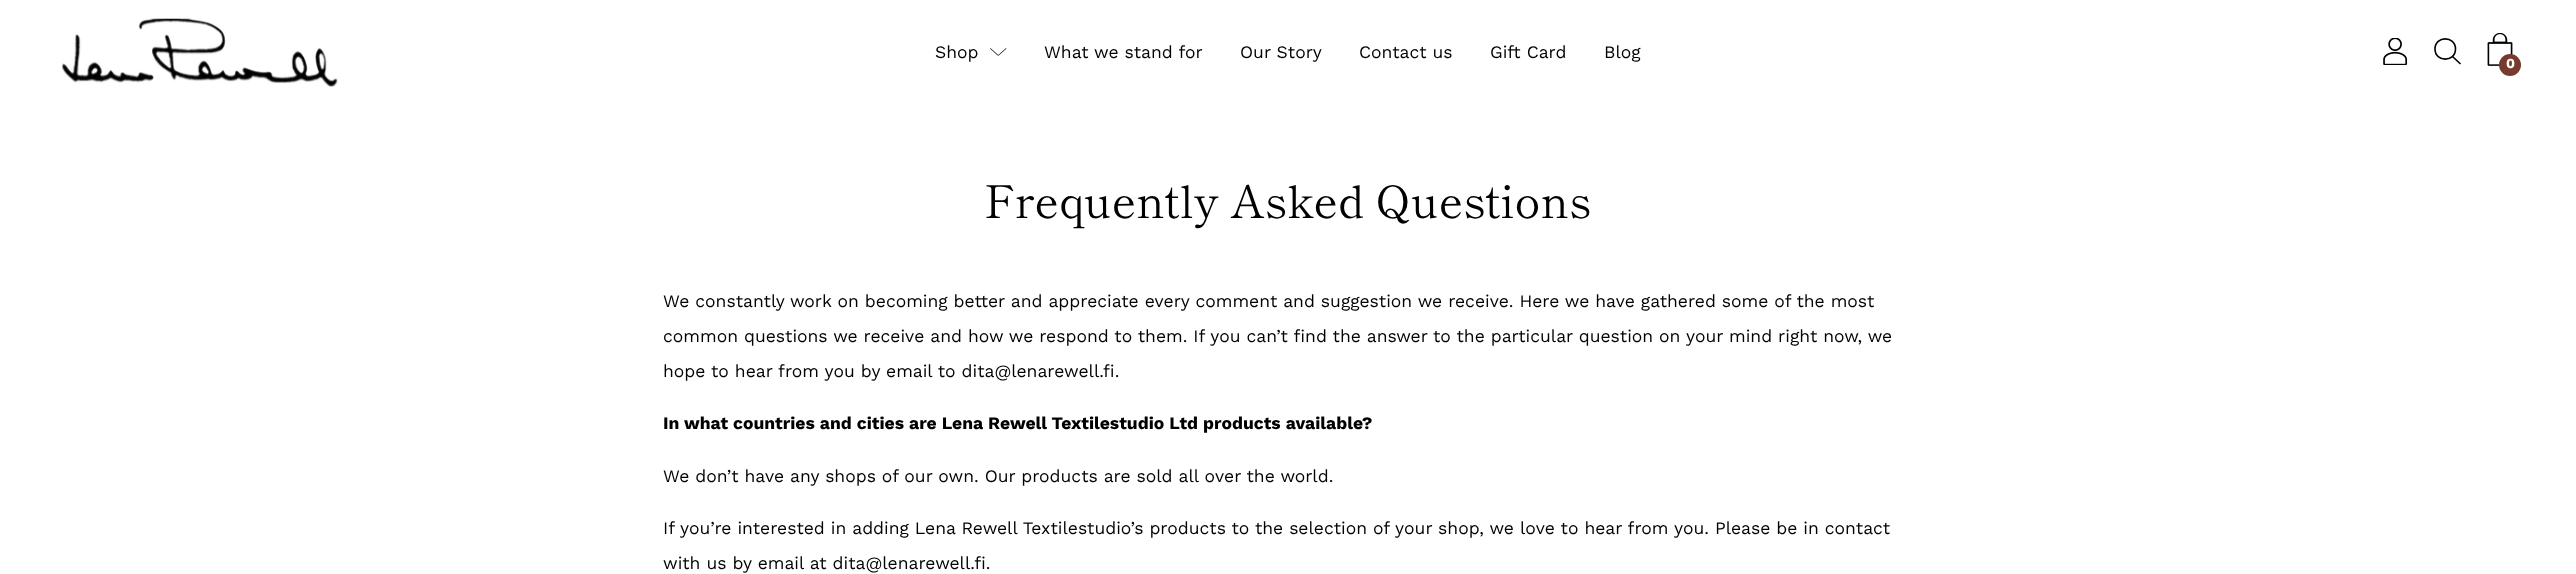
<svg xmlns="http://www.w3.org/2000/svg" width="2576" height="574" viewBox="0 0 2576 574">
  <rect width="100%" height="100%" fill="#fff"/>
  <image x="62" y="18" width="276" height="69" href="img/1.png"/>
  <image x="990" y="48" width="17" height="8" href="img/2.png"/>
  <image x="2383" y="38" width="25" height="27" href="img/3.png"/>
  <path d="M2455.5 49C2455.5 62.5 2435 62.5 2435 49C2435 35.5 2455.5 35.5 2455.5 49ZM2452.5 56.5L2460.5 64" fill="none" stroke="#000" stroke-width="1.6"/>
  <image x="2487" y="33" width="26" height="33" href="img/4.png"/>
  <circle cx="2510" cy="65" r="11" fill="#773a2f"/>
  <g font-family="Work Sans" font-size="17.5" fill="#000">
    <text x="935" y="58">Shop</text>
    <text x="1044" y="58">What we stand for</text>
    <text x="1240" y="58">Our Story</text>
    <text x="1359" y="58">Contact us</text>
    <text x="1490" y="58">Gift Card</text>
    <text x="1604" y="58">Blog</text>
  </g>
  <text x="2506" y="68" font-family="Work Sans" font-size="14" font-weight="bold" fill="#fff">0</text>
  <text x="984" y="218" font-family="Shippori Mincho" font-size="45" fill="#000">Frequently Asked Questions</text>
  <g font-family="Work Sans" font-size="17.5" fill="#000">
    <text x="663" y="307">We constantly work on becoming better and appreciate every comment and suggestion we receive. Here we have gathered some of the most</text>
    <text x="663" y="342">common questions we receive and how we respond to them. If you can’t find the answer to the particular question on your mind right now, we</text>
    <text x="663" y="377">hope to hear from you by email to dita@lenarewell.fi.</text>
  </g>
  <text x="663" y="429" font-family="Work Sans" font-size="17.5" font-weight="bold" fill="#000">In what countries and cities are Lena Rewell Textilestudio Ltd products available?</text>
  <g font-family="Work Sans" font-size="17.5" fill="#000">
    <text x="663" y="482">We don’t have any shops of our own. Our products are sold all over the world.</text>
    <text x="663" y="534">If you’re interested in adding Lena Rewell Textilestudio’s products to the selection of your shop, we love to hear from you. Please be in contact</text>
    <text x="663" y="569">with us by email at dita@lenarewell.fi.</text>
  </g>
</svg>
